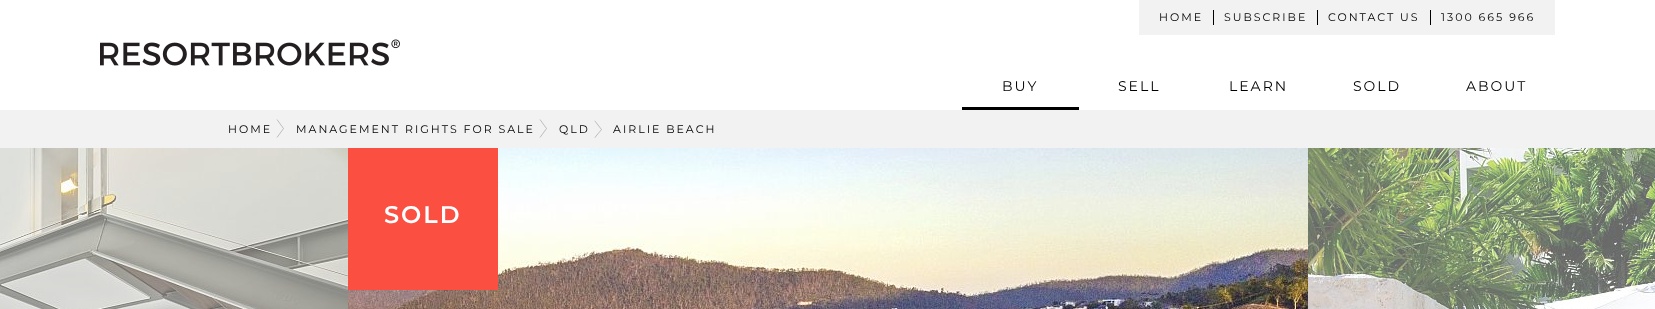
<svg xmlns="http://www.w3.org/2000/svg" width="1655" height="309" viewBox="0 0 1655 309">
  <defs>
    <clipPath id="clip1"><path d="M594.5 138V120H602V138Z"/></clipPath>
  </defs>
  <rect width="100%" height="100%" fill="#fff"/>
  <path d="M1139 0h416v35H1139z" fill="#f2f2f2"/>
  <path d="M1213 10h1v15H1213z" fill="#000"/>
  <path d="M1317 10h1v15H1317z" fill="#000"/>
  <path d="M1430 10h1v15H1430z" fill="#000"/>
  <image x="100" y="39" width="300" height="27" href="img/1.png"/>
  <path d="M962 107h117v3H962z" fill="#000"/>
  <path d="M0 110h1655v38H0z" fill="#f2f2f2"/>
  <path d="M277 137.5L283.5 128.5L277 119.5" fill="none" stroke="#999" stroke-width="0.6"/>
  <path d="M540 137.5L546.5 128.5L540 119.5" fill="none" stroke="#999" stroke-width="0.6"/>
  <g clip-path="url(#clip1)">
    <path d="M594.5 138L601.5 129.5L594.5 120.5" fill="none" stroke="#999" stroke-width="0.6"/>
  </g>
  <image x="0" y="148" width="348" height="161" href="img/2.png"/>
  <image x="348" y="148" width="960" height="161" href="img/3.png"/>
  <path d="M348 148h150v142H348z" fill="#fb4f42"/>
  <image x="1308" y="148" width="347" height="161" href="img/4.png"/>
  <g font-family="Montserrat" font-size="11" letter-spacing="2" fill="#000">
    <text x="1159" y="21">HOME</text>
    <text x="1224" y="21">SUBSCRIBE</text>
    <text x="1328" y="21">CONTACT US</text>
    <text x="1441" y="21">1300 665 966</text>
  </g>
  <g font-family="Montserrat" font-size="14" letter-spacing="2" fill="#000">
    <text x="1002" y="91">BUY</text>
    <text x="1118" y="91">SELL</text>
    <text x="1229" y="91">LEARN</text>
    <text x="1353" y="91">SOLD</text>
    <text x="1466" y="91">ABOUT</text>
  </g>
  <g font-family="Montserrat" font-size="11" letter-spacing="2" fill="#000">
    <text x="228" y="133">HOME</text>
    <text x="296" y="133">MANAGEMENT RIGHTS FOR SALE</text>
    <text x="559" y="133">QLD</text>
    <text x="613" y="133">AIRLIE BEACH</text>
  </g>
  <text x="384" y="223" font-family="Montserrat" font-size="24" font-weight="600" letter-spacing="2" fill="#fff">SOLD</text>
</svg>
